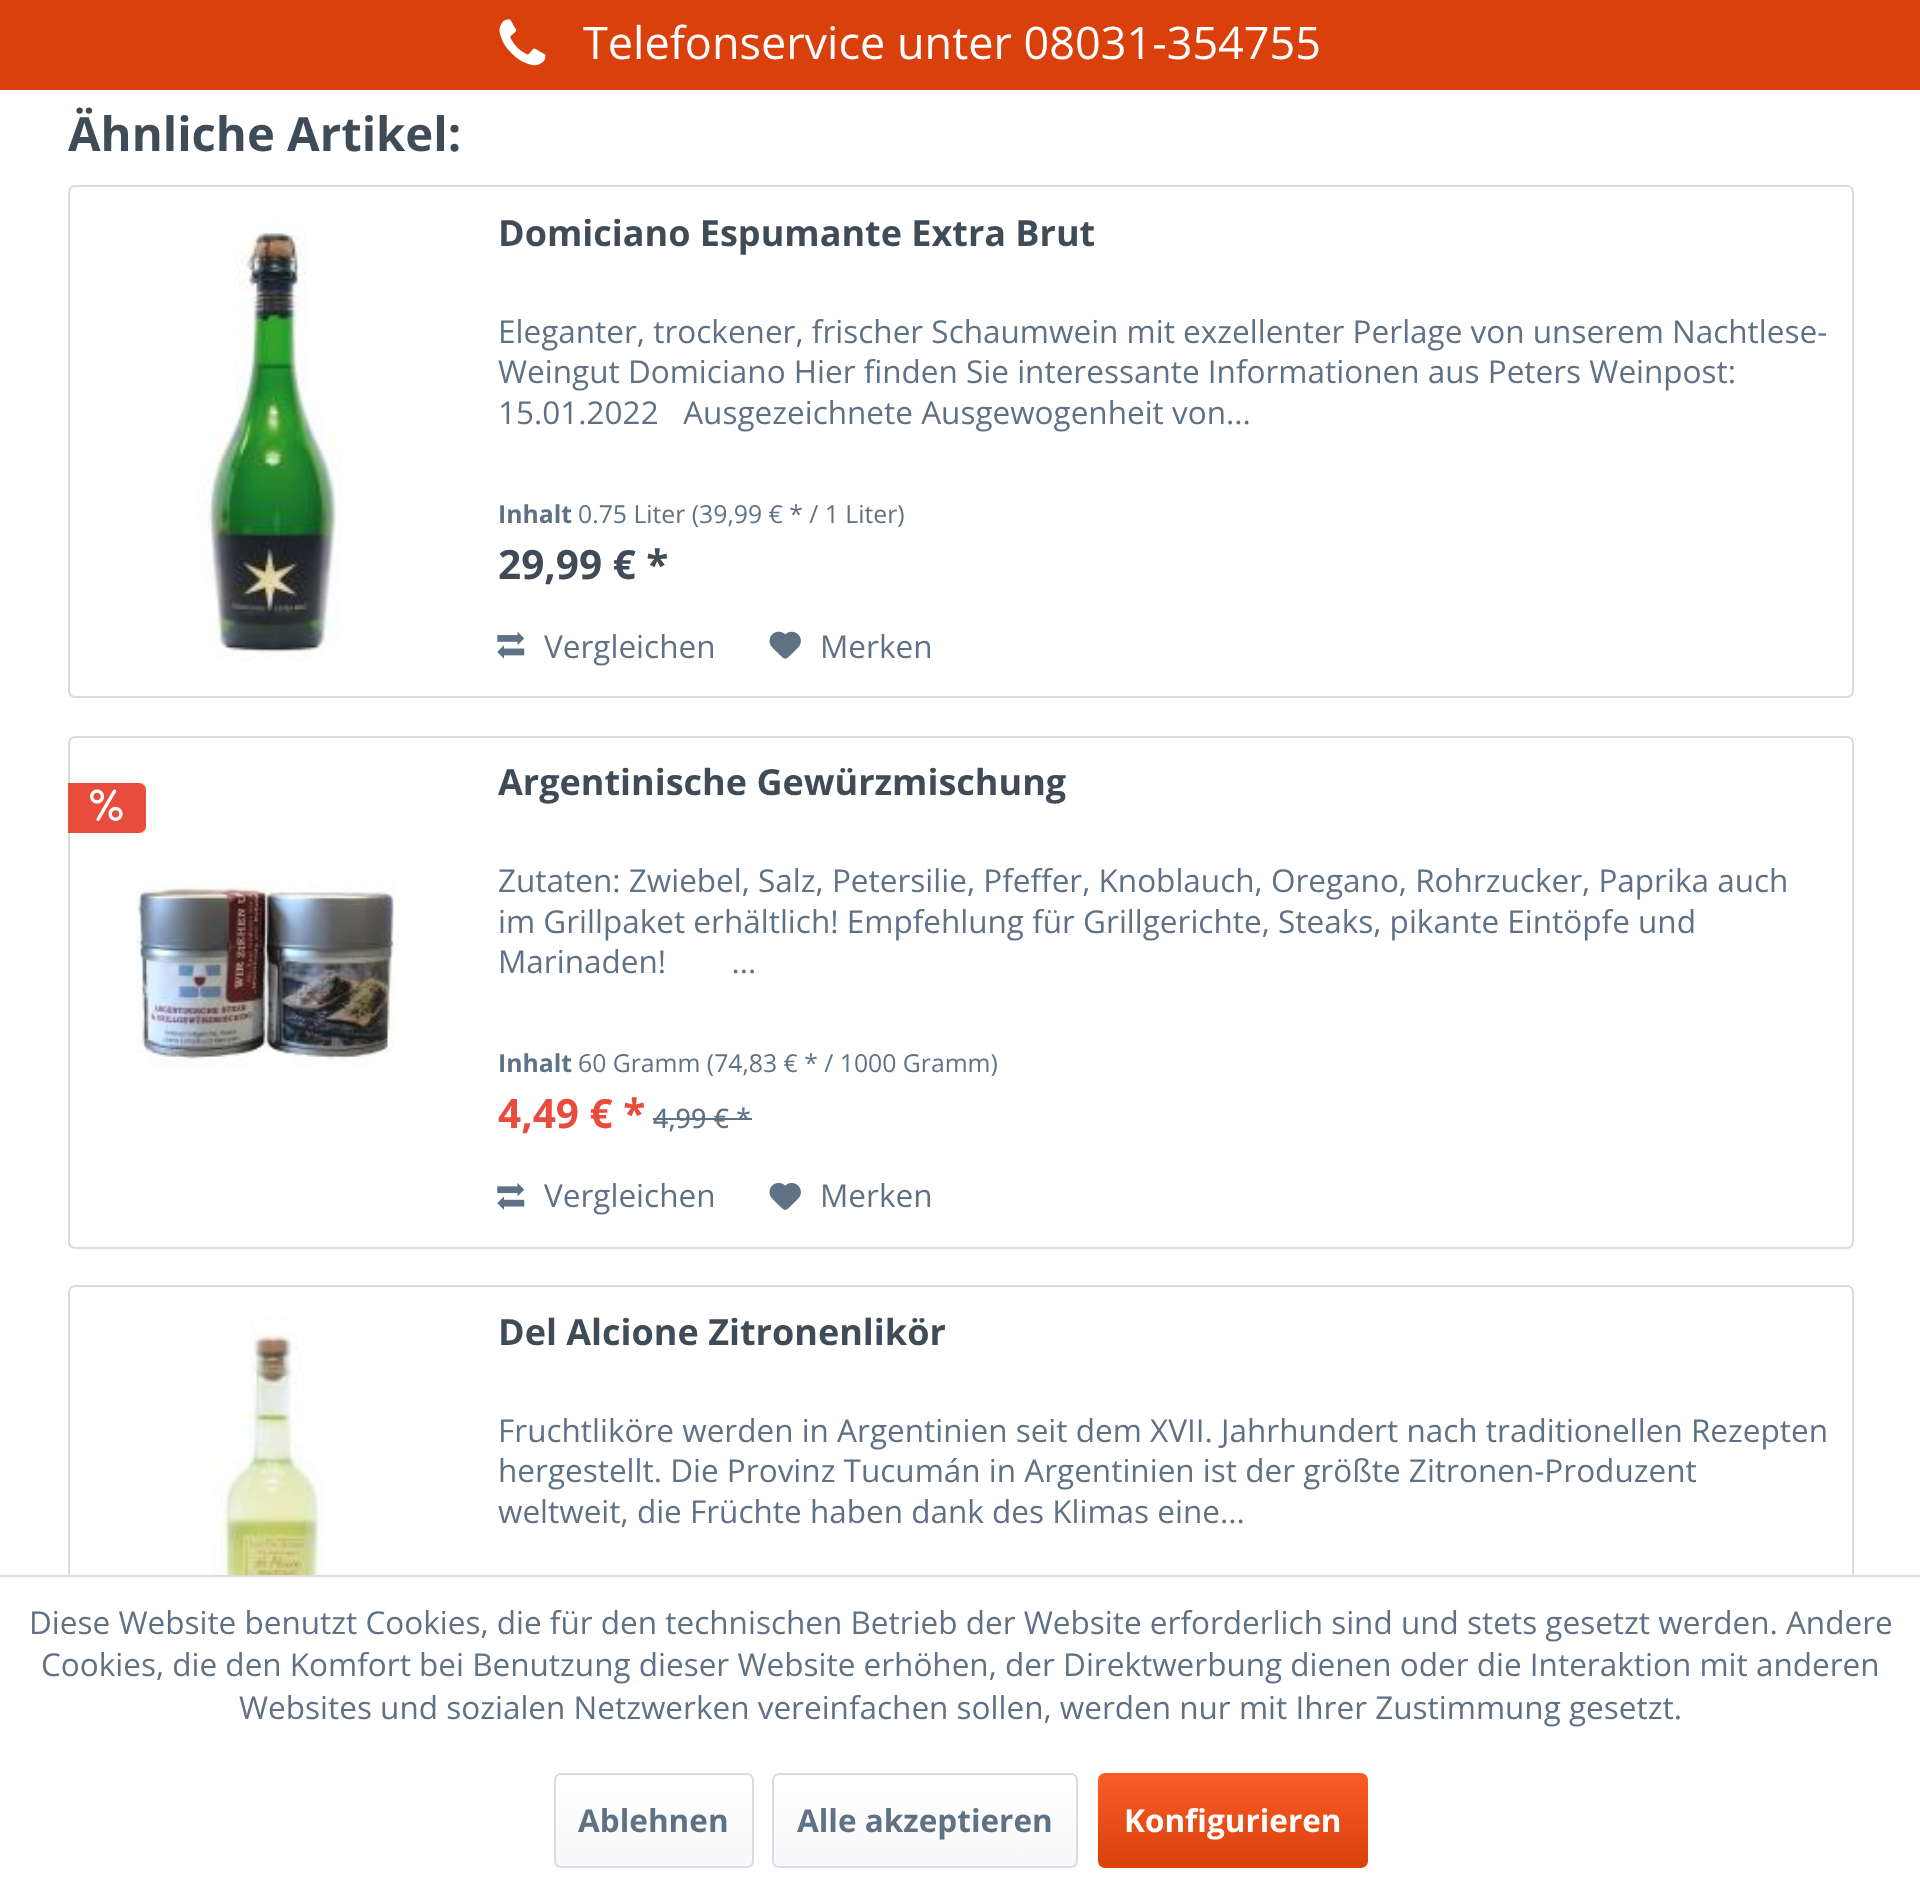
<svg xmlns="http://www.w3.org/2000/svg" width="1920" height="1889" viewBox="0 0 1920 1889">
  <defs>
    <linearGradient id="g1" gradientUnits="userSpaceOnUse" x1="654" y1="1775" x2="654" y2="1865"><stop offset="0" stop-color="#fff"/><stop offset="1" stop-color="#f8f8fa"/></linearGradient>
    <linearGradient id="g2" gradientUnits="userSpaceOnUse" x1="925" y1="1775" x2="925" y2="1865"><stop offset="0" stop-color="#fff"/><stop offset="1" stop-color="#f8f8fa"/></linearGradient>
    <linearGradient id="g3" gradientUnits="userSpaceOnUse" x1="1233" y1="1773" x2="1233" y2="1868"><stop offset="0" stop-color="#fa5d27"/><stop offset="1" stop-color="#d9400b"/></linearGradient>
  </defs>
  <rect width="100%" height="100%" fill="#fff"/>
  <path d="M0 0h1920v90H0z" fill="#d9400b"/>
  <image x="499" y="19" width="47" height="47" href="img/1.png"/>
  <rect x="69" y="186" width="1784" height="511" rx="6" fill="none" stroke="#dadae5" stroke-width="2"/>
  <image x="198" y="215" width="145" height="446" href="img/2.png"/>
  <image x="497" y="631" width="28" height="28" href="img/3.png"/>
  <image x="769" y="631" width="32" height="28" href="img/4.png"/>
  <rect x="69" y="737" width="1784" height="511" rx="6" fill="none" stroke="#dadae5" stroke-width="2"/>
  <path d="M68 783H139C143 783 146 786 146 790V826C146 830 143 833 139 833H68Z" fill="#e74c3c"/>
  <image x="90" y="789" width="33" height="32" href="img/5.png"/>
  <image x="135" y="872" width="273" height="195" href="img/6.png"/>
  <path d="M653 1118h99v2H653z" fill="#5f7285"/>
  <image x="497" y="1183" width="28" height="27" href="img/7.png"/>
  <image x="769" y="1182" width="32" height="28" href="img/8.png"/>
  <rect x="69" y="1286" width="1784" height="511" rx="6" fill="none" stroke="#dadae5" stroke-width="2"/>
  <image x="214" y="1316" width="109" height="259" href="img/9.png"/>
  <path d="M68 1577h1786v221H68z" fill="#fff"/>
  <path d="M0 1575h1920v2H0z" fill="#dadae5"/>
  <rect x="556" y="1775" width="196" height="90" rx="5" fill="url(#g1)"/>
  <rect x="555" y="1774" width="198" height="93" rx="6" fill="none" stroke="#dadae5" stroke-width="2"/>
  <rect x="774" y="1775" width="302" height="90" rx="5" fill="url(#g2)"/>
  <rect x="773" y="1774" width="304" height="93" rx="6" fill="none" stroke="#dadae5" stroke-width="2"/>
  <rect x="1098" y="1773" width="270" height="95" rx="7" fill="url(#g3)"/>
  <text x="583" y="59" font-family="Open Sans" font-size="45" fill="#fff">Telefonservice unter 08031-354755</text>
  <text x="68" y="151" font-family="Open Sans" font-size="47.25" font-weight="bold" fill="#3f4c58">Ähnliche Artikel:</text>
  <text x="498" y="246" font-family="Open Sans" font-size="36" font-weight="bold" fill="#3f4c58">Domiciano Espumante Extra Brut</text>
  <g font-family="Open Sans" font-size="31.5" fill="#5f7285">
    <text x="498" y="343">Eleganter, trockener, frischer Schaumwein mit exzellenter Perlage von unserem Nachtlese-</text>
    <text x="498" y="383">Weingut Domiciano Hier finden Sie interessante Informationen aus Peters Weinpost:</text>
    <text x="498" y="424" xml:space="preserve">15.01.2022   Ausgezeichnete Ausgewogenheit von...</text>
  </g>
  <text x="498" y="523" font-family="Open Sans" font-size="24.75" font-weight="bold" fill="#5f7285">Inhalt</text>
  <text x="578" y="523" font-family="Open Sans" font-size="24.75" fill="#5f7285">0.75 Liter (39,99 € * / 1 Liter)</text>
  <text x="498" y="579" font-family="Open Sans" font-size="40.5" font-weight="bold" fill="#3f4c58">29,99 € *</text>
  <g font-family="Open Sans" font-size="31.5" fill="#5f7285">
    <text x="544" y="658">Vergleichen</text>
    <text x="820" y="658">Merken</text>
  </g>
  <text x="498" y="795" font-family="Open Sans" font-size="36" font-weight="bold" fill="#3f4c58">Argentinische Gewürzmischung</text>
  <g font-family="Open Sans" font-size="31.5" fill="#5f7285">
    <text x="498" y="892">Zutaten: Zwiebel, Salz, Petersilie, Pfeffer, Knoblauch, Oregano, Rohrzucker, Paprika auch</text>
    <text x="498" y="933">im Grillpaket erhältlich! Empfehlung für Grillgerichte, Steaks, pikante Eintöpfe und</text>
    <text x="498" y="973" xml:space="preserve">Marinaden!        ...</text>
  </g>
  <text x="498" y="1072" font-family="Open Sans" font-size="24.75" font-weight="bold" fill="#5f7285">Inhalt</text>
  <text x="578" y="1072" font-family="Open Sans" font-size="24.75" fill="#5f7285">60 Gramm (74,83 € * / 1000 Gramm)</text>
  <text x="498" y="1128" font-family="Open Sans" font-size="40.5" font-weight="bold" fill="#e74c3c">4,49 € *</text>
  <text x="653" y="1128" font-family="Open Sans" font-size="27" font-weight="500" fill="#5f7285">4,99 € *</text>
  <g font-family="Open Sans" font-size="31.5" fill="#5f7285">
    <text x="544" y="1207">Vergleichen</text>
    <text x="820" y="1207">Merken</text>
  </g>
  <text x="498" y="1345" font-family="Open Sans" font-size="36" font-weight="bold" fill="#3f4c58">Del Alcione Zitronenlikör</text>
  <g font-family="Open Sans" font-size="31.5" fill="#5f7285">
    <text x="498" y="1442">Fruchtliköre werden in Argentinien seit dem XVII. Jahrhundert nach traditionellen Rezepten</text>
    <text x="498" y="1482">hergestellt. Die Provinz Tucumán in Argentinien ist der größte Zitronen-Produzent</text>
    <text x="498" y="1523">weltweit, die Früchte haben dank des Klimas eine...</text>
    <text x="29" y="1634">Diese Website benutzt Cookies, die für den technischen Betrieb der Website erforderlich sind und stets gesetzt werden. Andere</text>
    <text x="41" y="1676">Cookies, die den Komfort bei Benutzung dieser Website erhöhen, der Direktwerbung dienen oder die Interaktion mit anderen</text>
    <text x="239" y="1719">Websites und sozialen Netzwerken vereinfachen sollen, werden nur mit Ihrer Zustimmung gesetzt.</text>
  </g>
  <g font-family="Open Sans" font-size="31.5" font-weight="bold" fill="#5f7285">
    <text x="578" y="1832">Ablehnen</text>
    <text x="797" y="1832">Alle akzeptieren</text>
  </g>
  <text x="1124" y="1832" font-family="Open Sans" font-size="31.5" font-weight="bold" fill="#fff">Konfigurieren</text>
</svg>
